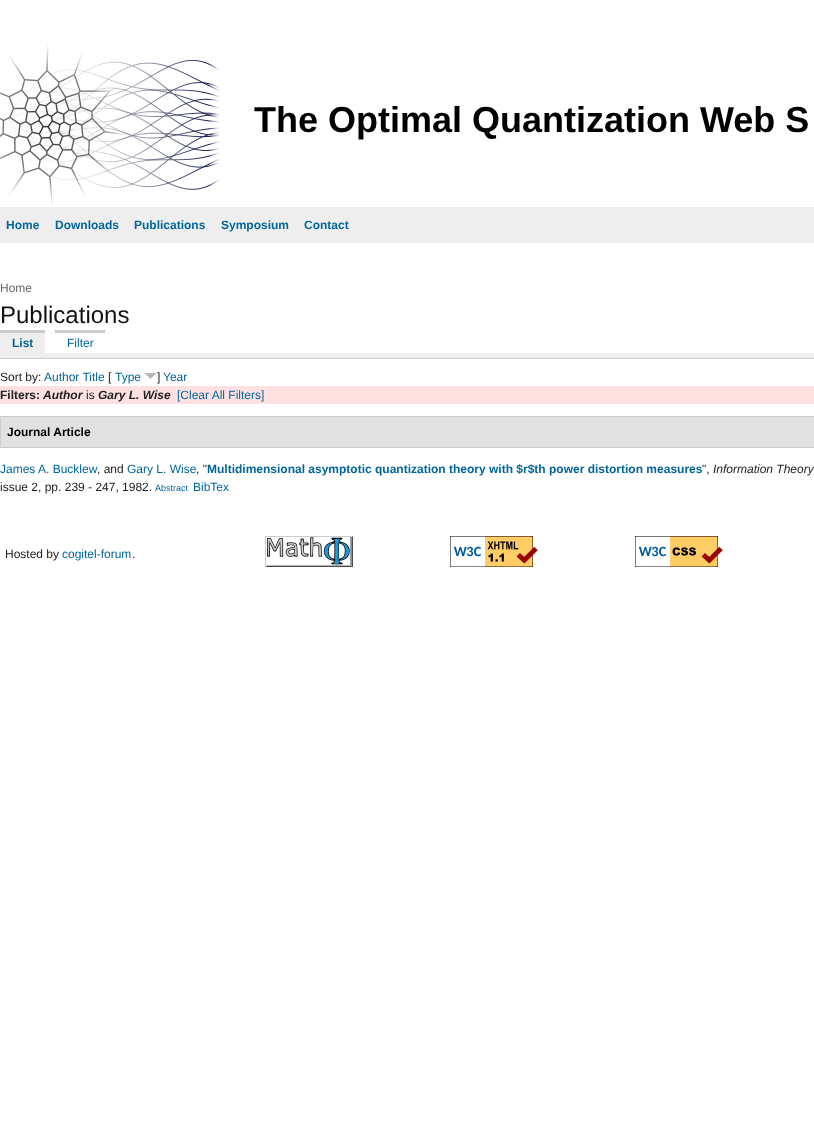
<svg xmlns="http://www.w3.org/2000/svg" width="814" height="1133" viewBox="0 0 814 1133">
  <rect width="100%" height="100%" fill="#fff"/>
  <image x="0" y="44" width="220" height="161" href="img/1.png"/>
  <path d="M0 207h814v36H0z" fill="#eee"/>
  <path d="M0 358h814v1H0z" fill="#ccc"/>
  <path d="M0 353h814v5H0z" fill="#eee"/>
  <path d="M0 333h45v20H0z" fill="#eee"/>
  <path d="M0 330h45v3H0z" fill="#ccc"/>
  <path d="M55 330h50v3H55z" fill="#ccc"/>
  <image x="145" y="373" width="11" height="6" href="img/2.png"/>
  <path d="M0 386h814v18H0z" fill="#ffe1e1"/>
  <path d="M0.5 416.5h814v31H0.5z" fill="#e1e1e1" stroke="#ccc"/>
  <image x="265" y="536" width="88" height="31" href="img/3.png"/>
  <image x="450" y="536" width="88" height="31" href="img/4.png"/>
  <image x="635" y="536" width="88" height="31" href="img/5.png"/>
  <text x="254" y="132" font-family="Liberation Sans" font-size="36" font-weight="bold" fill="#000">The Optimal Quantization Web S</text>
  <g font-family="Liberation Sans" font-size="12" font-weight="bold" fill="#069">
    <text x="6" y="229">Home</text>
    <text x="55" y="229">Downloads</text>
    <text x="134" y="229">Publications</text>
    <text x="221" y="229">Symposium</text>
    <text x="304" y="229">Contact</text>
  </g>
  <text x="0" y="292" font-family="Liberation Sans" font-size="12" fill="#666">Home</text>
  <text x="0" y="323" font-family="Liberation Sans" font-size="24" fill="#111">Publications</text>
  <text x="12" y="347" font-family="Liberation Sans" font-size="12" font-weight="bold" fill="#069">List</text>
  <text x="67" y="347" font-family="Liberation Sans" font-size="12" fill="#069">Filter</text>
  <text x="0" y="381" font-family="Liberation Sans" font-size="12" fill="#222">Sort by:</text>
  <text x="44" y="381" font-family="Liberation Sans" font-size="12" fill="#069">Author Title</text>
  <text x="108" y="381" font-family="Liberation Sans" font-size="12" fill="#222">[</text>
  <text x="115" y="381" font-family="Liberation Sans" font-size="12" fill="#069">Type</text>
  <text x="157" y="381" font-family="Liberation Sans" font-size="12" fill="#222">]</text>
  <text x="163" y="381" font-family="Liberation Sans" font-size="12" fill="#069">Year</text>
  <text x="0" y="399" font-family="Liberation Sans" font-size="12" font-weight="bold" fill="#222">Filters:</text>
  <text x="43" y="399" font-family="Liberation Sans" font-size="12" font-weight="bold" font-style="italic" fill="#222">Author</text>
  <text x="86" y="399" font-family="Liberation Sans" font-size="12" fill="#222">is</text>
  <text x="98" y="399" font-family="Liberation Sans" font-size="12" font-weight="bold" font-style="italic" fill="#222">Gary L. Wise</text>
  <text x="177" y="399" font-family="Liberation Sans" font-size="12" fill="#069">[Clear All Filters]</text>
  <text x="7" y="436" font-family="Liberation Sans" font-size="12" font-weight="bold" fill="#000">Journal Article</text>
  <text x="0" y="473" font-family="Liberation Sans" font-size="12" fill="#069">James A. Bucklew</text>
  <text x="97" y="473" font-family="Liberation Sans" font-size="12" fill="#222">, and</text>
  <text x="127" y="473" font-family="Liberation Sans" font-size="12" fill="#069">Gary L. Wise</text>
  <text x="196" y="473" font-family="Liberation Sans" font-size="12" fill="#222">, "</text>
  <text x="207" y="473" font-family="Liberation Sans" font-size="12" font-weight="bold" fill="#069">Multidimensional asymptotic quantization theory with $r$th power distortion measures</text>
  <text x="702" y="473" font-family="Liberation Sans" font-size="12" fill="#222">",</text>
  <text x="713" y="473" font-family="Liberation Sans" font-size="12" font-style="italic" fill="#222">Information Theory</text>
  <text x="0" y="491" font-family="Liberation Sans" font-size="12" fill="#222">issue 2, pp. 239 - 247, 1982.</text>
  <text x="155" y="491" font-family="Liberation Sans" font-size="9" fill="#069">Abstract</text>
  <text x="193" y="491" font-family="Liberation Sans" font-size="12" fill="#069">BibTex</text>
  <text x="5" y="558" font-family="Liberation Sans" font-size="12" fill="#222">Hosted by</text>
  <text x="62" y="558" font-family="Liberation Sans" font-size="12" fill="#069">cogitel-forum</text>
  <text x="132" y="558" font-family="Liberation Sans" font-size="12" fill="#222">.</text>
</svg>
